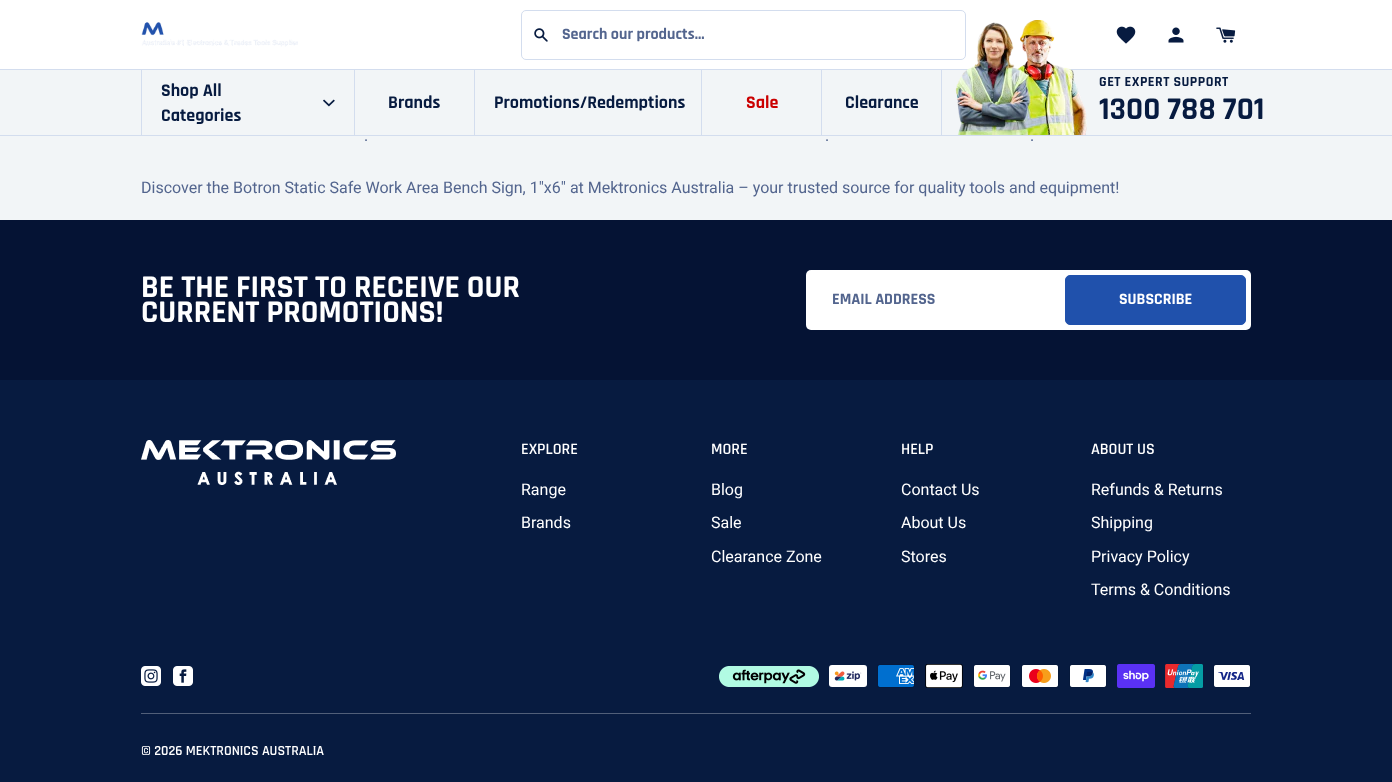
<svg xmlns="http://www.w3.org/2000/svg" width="1392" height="782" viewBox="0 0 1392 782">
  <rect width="100%" height="100%" fill="#071b40"/>
  <path d="M0 0h1392v70H0z" fill="#fff"/>
  <image x="141" y="22" width="157" height="25" href="img/1.png"/>
  <rect x="521.5" y="10.5" width="444" height="49" rx="4.5" fill="none" stroke="#d3ddee"/>
  <image x="534" y="28" width="14" height="14" href="img/2.png"/>
  <image x="1116" y="26" width="20" height="18" href="img/3.png"/>
  <image x="1168" y="27" width="16" height="16" href="img/4.png"/>
  <image x="1216" y="27" width="20" height="16" href="img/5.png"/>
  <path d="M0 135h1392v85H0z" fill="#f2f5f7"/>
  <path d="M0 69h1392v65H0z" fill="#d3ddee" filter="blur(0.5px)"/>
  <path d="M0 71h1392v65H0z" fill="#d3ddee" filter="blur(0.5px)"/>
  <path d="M0 70h1392v65H0z" fill="#f2f5f7"/>
  <path d="M354 70h1v65H354z" fill="#d3ddee"/>
  <path d="M141 70h1v65H141z" fill="#d3ddee"/>
  <image x="323" y="99" width="12" height="8" href="img/6.png"/>
  <path d="M474 70h1v65H474z" fill="#d3ddee"/>
  <path d="M701 70h1v65H701z" fill="#d3ddee"/>
  <path d="M821 70h1v65H821z" fill="#d3ddee"/>
  <path d="M941 70h1v65H941z" fill="#d3ddee"/>
  <image x="955" y="20" width="132" height="115" href="img/7.png"/>
  <path d="M0 220h1392v160H0z" fill="#051334"/>
  <rect x="806" y="270" width="445" height="60" rx="5" fill="#fff"/>
  <rect x="1065.5" y="275.5" width="180" height="49" rx="4.5" fill="#2051ac" stroke="#2051ac"/>
  <image x="141" y="440" width="255" height="45" href="img/8.png"/>
  <image x="141" y="666" width="20" height="20" href="img/9.png"/>
  <image x="173" y="666" width="20" height="20" href="img/10.png"/>
  <image x="719" y="666" width="100" height="21" href="img/11.png"/>
  <rect x="829" y="665" width="38" height="22" rx="3" fill="#fff"/>
  <image x="834" y="671" width="28" height="10" href="img/12.png"/>
  <image x="877" y="664" width="38" height="24" href="img/13.png"/>
  <image x="925" y="664" width="38" height="24" href="img/14.png"/>
  <image x="973" y="664" width="38" height="24" href="img/15.png"/>
  <image x="1021" y="664" width="38" height="24" href="img/16.png"/>
  <image x="1069" y="664" width="38" height="24" href="img/17.png"/>
  <image x="1117" y="664" width="38" height="24" href="img/18.png"/>
  <image x="1165" y="664" width="38" height="24" href="img/19.png"/>
  <image x="1213" y="664" width="38" height="24" href="img/20.png"/>
  <path d="M141 713h1110v1H141z" fill="#515f79"/>
  <text x="562" y="39" font-family="Rajdhani" font-size="16" font-weight="bold" fill="#53658e">Search our products...</text>
  <g font-family="Rajdhani" font-size="18" font-weight="bold" fill="#071b40">
    <text x="161" y="96">Shop All</text>
    <text x="161" y="121">Categories</text>
    <text x="388" y="108">Brands</text>
    <text x="494" y="108">Promotions/Redemptions</text>
  </g>
  <text x="746" y="108" font-family="Rajdhani" font-size="18" font-weight="bold" fill="#cb0000">Sale</text>
  <text x="845" y="108" font-family="Rajdhani" font-size="18" font-weight="bold" fill="#071b40">Clearance</text>
  <text x="1099" y="86" font-family="Rajdhani" font-size="14" font-weight="bold" letter-spacing="0.5" fill="#071b40">GET EXPERT SUPPORT</text>
  <text x="1099" y="119" font-family="Rajdhani" font-size="32" font-weight="bold" fill="#071b40">1300 788 701</text>
  <g font-family="Roboto" font-size="16" fill="#53658e">
    <text x="364" y="141">.</text>
    <text x="825" y="141">.</text>
    <text x="1030" y="141">.</text>
    <text x="141" y="193">Discover the Botron Static Safe Work Area Bench Sign, 1"x6" at Mektronics Australia – your trusted source for quality tools and equipment!</text>
  </g>
  <g font-family="Rajdhani" font-size="32" font-weight="bold" fill="#fff">
    <text x="141" y="297">BE THE FIRST TO RECEIVE OUR</text>
    <text x="141" y="322">CURRENT PROMOTIONS!</text>
  </g>
  <text x="832" y="304" font-family="Rajdhani" font-size="16" font-weight="bold" fill="#53658e">EMAIL ADDRESS</text>
  <text x="1119" y="304" font-family="Rajdhani" font-size="16" font-weight="bold" fill="#fff">SUBSCRIBE</text>
  <text x="521" y="454" font-family="Rajdhani" font-size="16" font-weight="600" fill="#fff">EXPLORE</text>
  <g font-family="Roboto" font-size="16" fill="#fff">
    <text x="521" y="495">Range</text>
    <text x="521" y="528">Brands</text>
  </g>
  <text x="711" y="454" font-family="Rajdhani" font-size="16" font-weight="600" fill="#fff">MORE</text>
  <g font-family="Roboto" font-size="16" fill="#fff">
    <text x="711" y="495">Blog</text>
    <text x="711" y="528">Sale</text>
    <text x="711" y="562">Clearance Zone</text>
  </g>
  <text x="901" y="454" font-family="Rajdhani" font-size="16" font-weight="600" fill="#fff">HELP</text>
  <g font-family="Roboto" font-size="16" fill="#fff">
    <text x="901" y="495">Contact Us</text>
    <text x="901" y="528">About Us</text>
    <text x="901" y="562">Stores</text>
  </g>
  <text x="1091" y="454" font-family="Rajdhani" font-size="16" font-weight="600" fill="#fff">ABOUT US</text>
  <g font-family="Roboto" font-size="16" fill="#fff">
    <text x="1091" y="495">Refunds &amp; Returns</text>
    <text x="1091" y="528">Shipping</text>
    <text x="1091" y="562">Privacy Policy</text>
    <text x="1091" y="595">Terms &amp; Conditions</text>
  </g>
  <text x="141" y="755" font-family="Rajdhani" font-size="14" font-weight="600" fill="#fff">© 2026 MEKTRONICS AUSTRALIA</text>
</svg>
